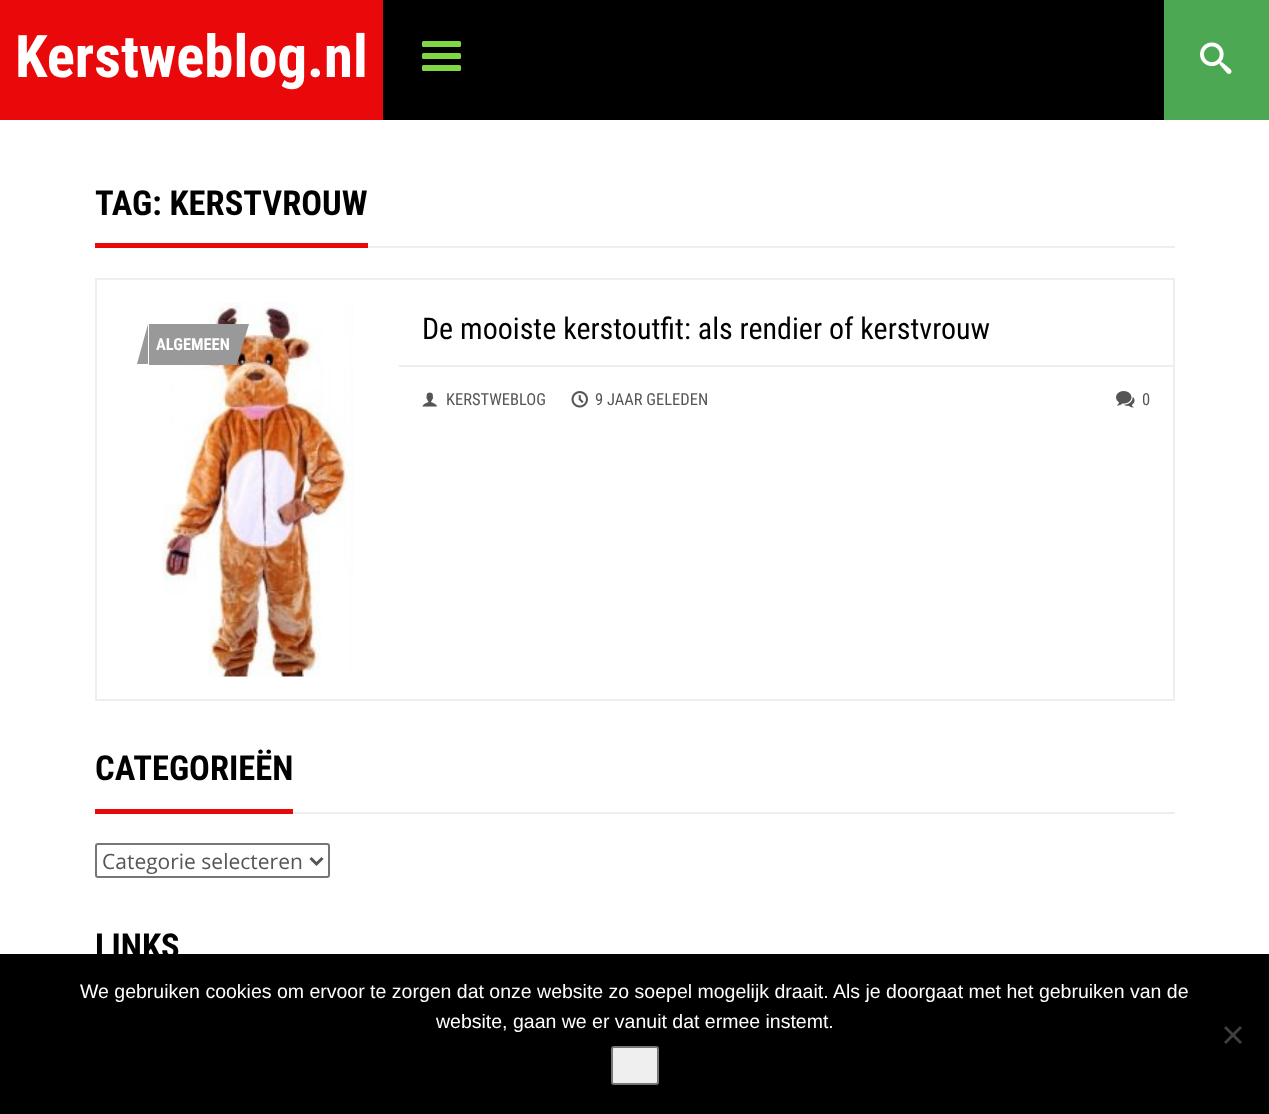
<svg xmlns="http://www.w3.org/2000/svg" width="1269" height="1114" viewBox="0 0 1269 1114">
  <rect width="100%" height="100%" fill="#fff"/>
  <path d="M383 0h781v120H383z" fill="#000"/>
  <path d="M0 0h383v120H0z" fill="#e9080a"/>
  <rect x="422" y="53" width="39" height="6" rx="1.5" fill="#81d742"/>
  <rect x="422" y="41" width="39" height="6" rx="1.5" fill="#81d742"/>
  <rect x="422" y="65" width="39" height="6" rx="1.5" fill="#81d742"/>
  <path d="M1164 0h105v120H1164z" fill="#4da854"/>
  <image x="1200" y="42" width="32" height="32" href="img/1.png"/>
  <path d="M368 246h807v2H368z" fill="#eee"/>
  <path d="M95 243h273v5H95z" fill="#e9080a"/>
  <path d="M96 279h1078v421H96z" fill="none" stroke="#eee" stroke-width="2"/>
  <image x="162" y="302" width="192" height="375" href="img/2.png"/>
  <path d="M149 324h88v41H149z" fill="#999"/>
  <path d="M148 324V364H137Z" fill="#999"/>
  <path d="M237 364V324H249Z" fill="#999"/>
  <path d="M399 365h774v2H399z" fill="#eee"/>
  <image x="422" y="392" width="15" height="15" href="img/3.png"/>
  <image x="571" y="391" width="17" height="17" href="img/4.png"/>
  <image x="1116" y="391" width="19" height="17" href="img/5.png"/>
  <path d="M293 812h882v2H293z" fill="#eee"/>
  <path d="M95 809h198v5H95z" fill="#e9080a"/>
  <rect x="96" y="844" width="233" height="33" rx="2" fill="none" stroke="#767676" stroke-width="2"/>
  <path d="M310.5 858L316.5 864L322.5 858" fill="none" stroke="#555" stroke-width="3"/>
  <path d="M0 954h1269v160H0z" fill="#000"/>
  <path d="M1240 1026L1242 1028L1226 1044L1224 1042Z" fill="#404040"/>
  <path d="M1224 1028L1226 1026L1242 1042L1240 1044Z" fill="#404040"/>
  <rect x="612" y="1047" width="46" height="37" rx="2" fill="#efefef" stroke="#767676" stroke-width="2"/>
  <text x="15" y="77" font-family="Roboto Condensed" font-size="58.75" font-weight="bold" fill="#fff">Kerstweblog.nl</text>
  <text x="95" y="215" font-family="Roboto Condensed" font-size="34.5" font-weight="bold" fill="#000">TAG: KERSTVROUW</text>
  <text x="156" y="350" font-family="Roboto Condensed" font-size="16.5" font-weight="bold" fill="#fff">ALGEMEEN</text>
  <text x="422" y="339" font-family="Roboto Condensed" font-size="30" fill="#000">De mooiste kerstoutfit: als rendier of kerstvrouw</text>
  <g font-family="Roboto Condensed" font-size="16.5" fill="#555">
    <text x="446" y="405">KERSTWEBLOG</text>
    <text x="595" y="405">9 JAAR GELEDEN</text>
    <text x="1142" y="405">0</text>
  </g>
  <text x="95" y="780" font-family="Roboto Condensed" font-size="34.5" font-weight="bold" fill="#000">CATEGORIEËN</text>
  <text x="102" y="869" font-family="Open Sans" font-size="21" fill="#555">Categorie selecteren</text>
  <text x="95" y="958" font-family="Roboto Condensed" font-size="34.5" font-weight="bold" fill="#000">LINKS</text>
  <g font-family="Liberation Sans" font-size="19.5" fill="#fff">
    <text x="80" y="998">We gebruiken cookies om ervoor te zorgen dat onze website zo soepel mogelijk draait. Als je doorgaat met het gebruiken van de</text>
    <text x="436" y="1028">website, gaan we er vanuit dat ermee instemt.</text>
  </g>
</svg>
